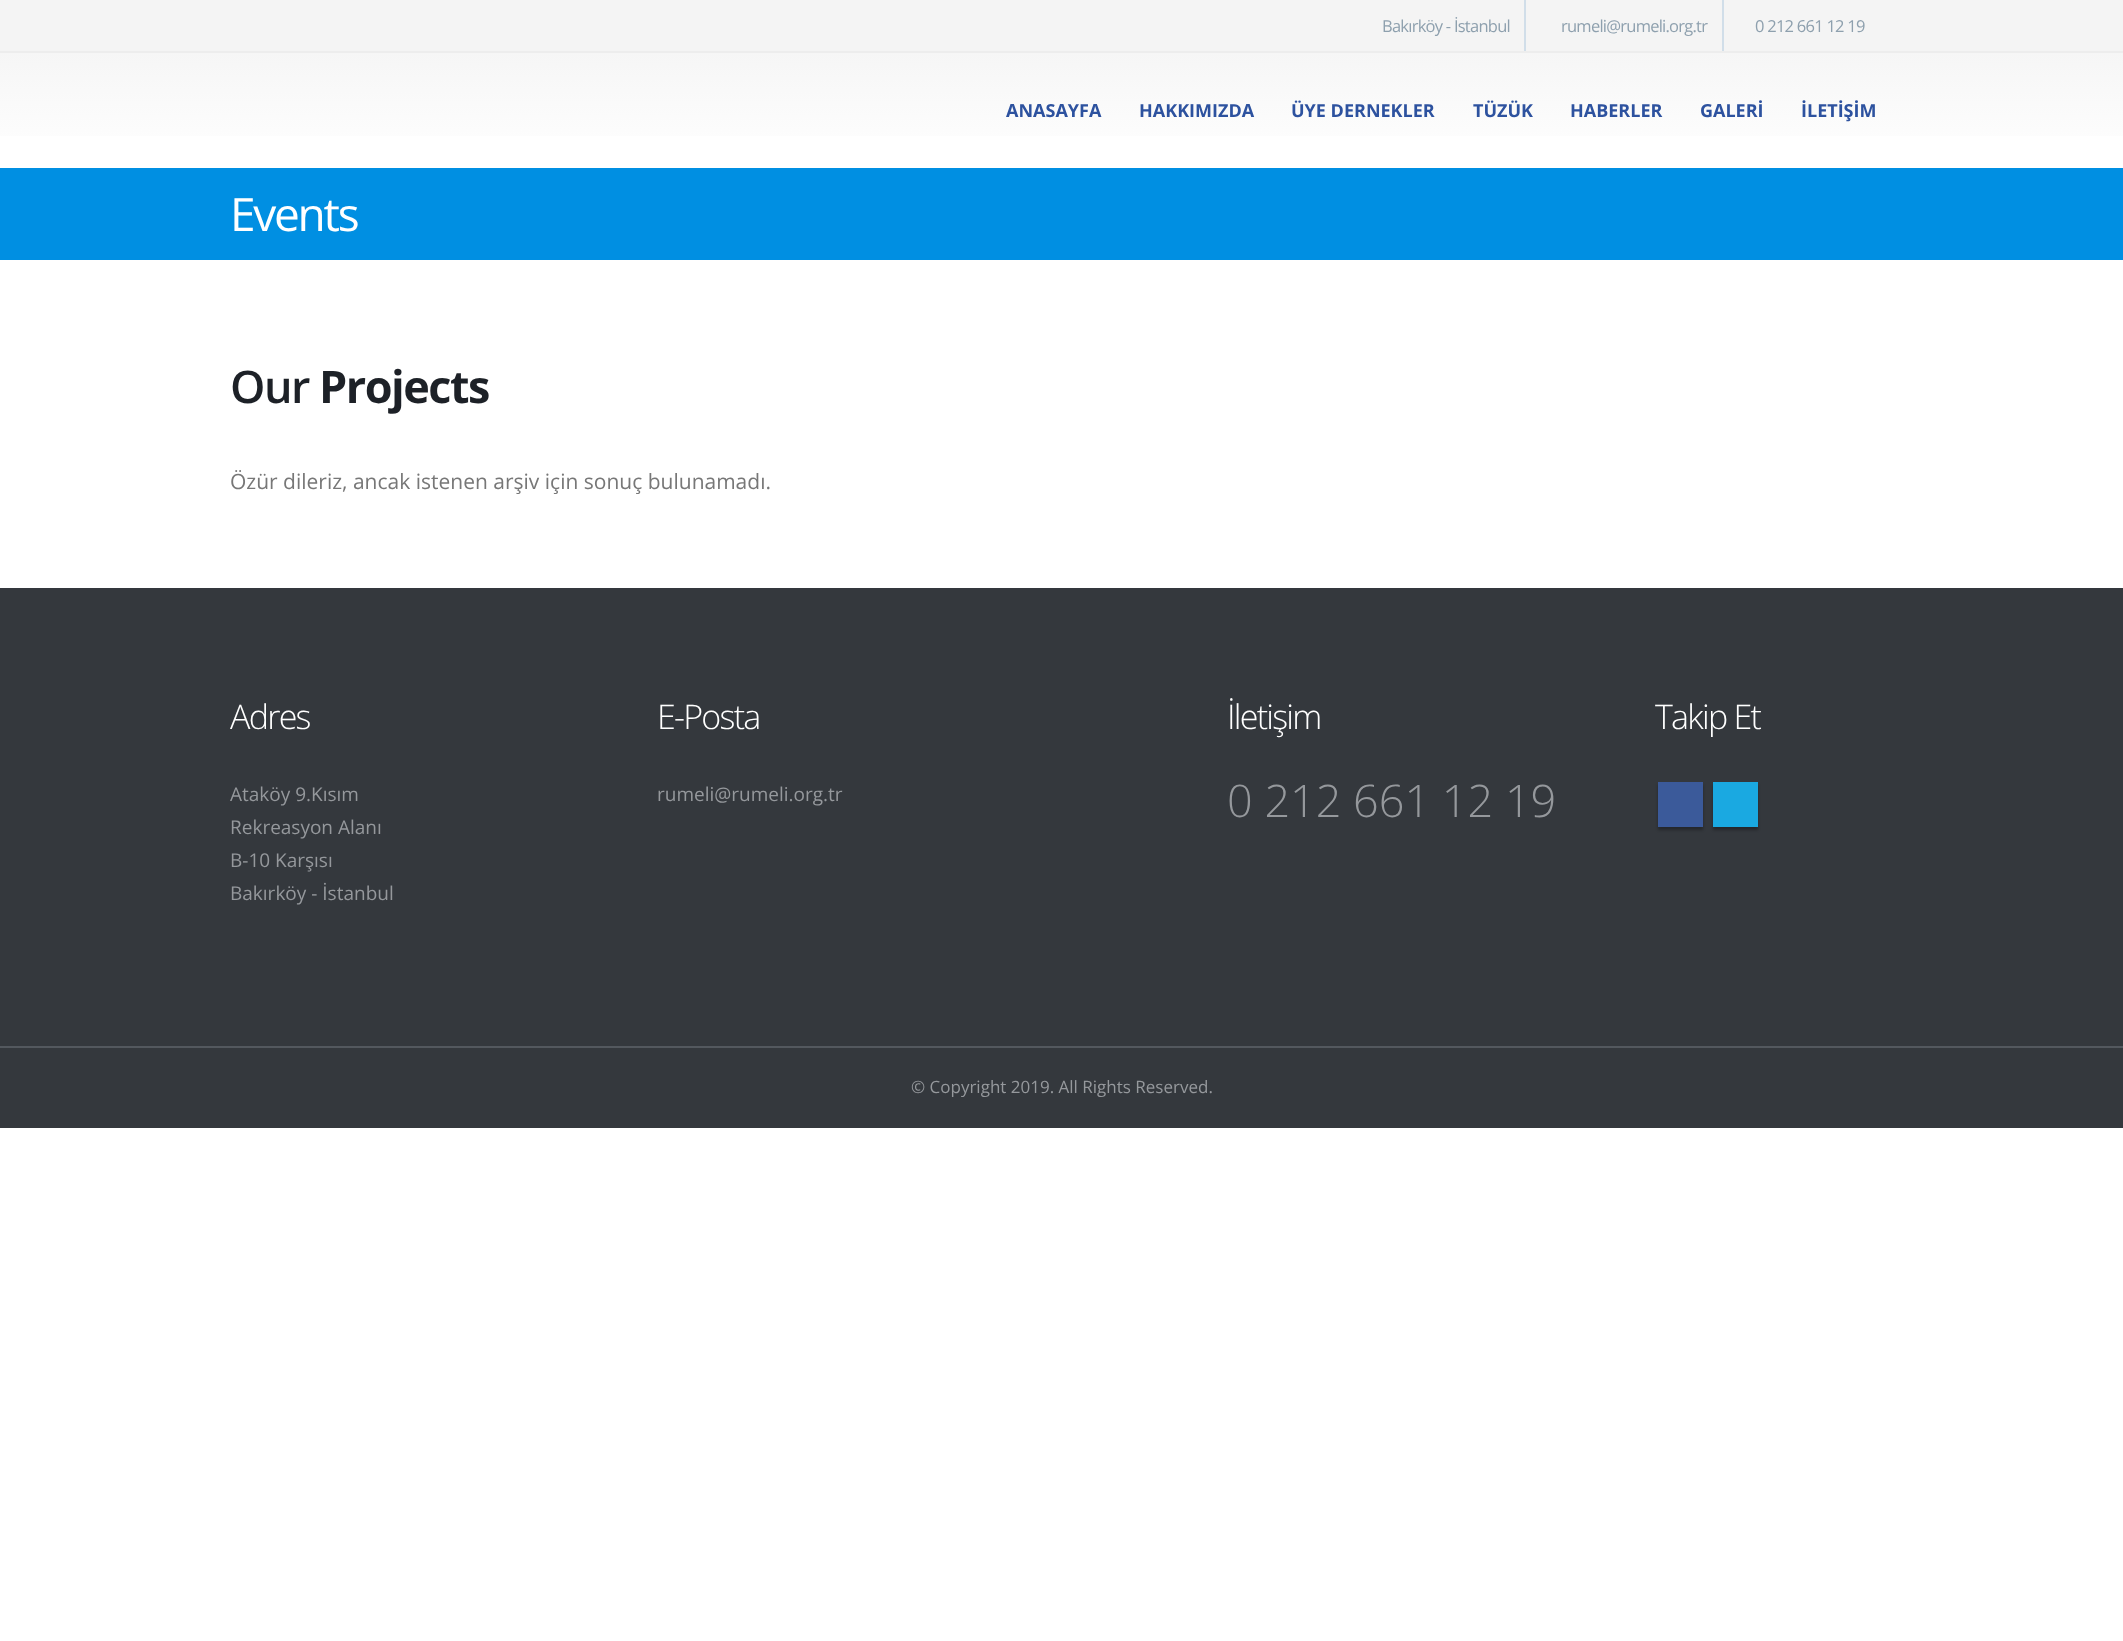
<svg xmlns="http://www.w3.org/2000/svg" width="2123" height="1641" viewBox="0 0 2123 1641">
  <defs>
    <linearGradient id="g1" gradientUnits="userSpaceOnUse" x1="1062" y1="52" x2="1062" y2="168"><stop offset="0" stop-color="#f6f6f6"/><stop offset="1" stop-color="#fff"/></linearGradient>
  </defs>
  <rect width="100%" height="100%" fill="#fff"/>
  <path d="M0 0h2123v51H0z" fill="#f4f4f4"/>
  <path d="M0 51h2123v2H0z" fill="#ededed"/>
  <path d="M1524 0h2v51H1524z" fill="#d1dee9"/>
  <path d="M1722 0h2v51H1722z" fill="#d1dee9"/>
  <path d="M0 53h2123v83H0z" fill="url(#g1)"/>
  <path d="M0 168h2123v92H0z" fill="#008fe2"/>
  <path d="M0 588h2123v540H0z" fill="#34383d"/>
  <path d="M1658 785h45v45H1658z" fill="#0000004d" filter="blur(1.5px)"/>
  <path d="M1658 782h45v45H1658z" fill="#3b5a9a"/>
  <path d="M1713 785h45v45H1713z" fill="#0000004d" filter="blur(1.5px)"/>
  <path d="M1713 782h45v45H1713z" fill="#1aa9e1"/>
  <path d="M0 1046h2123v2H0z" fill="#53585e"/>
  <g font-family="Open Sans" font-size="16.5" letter-spacing="-0.75" fill="#8ea0ae">
    <text x="1382" y="32">Bakırköy - İstanbul</text>
    <text x="1561" y="32">rumeli@rumeli.org.tr</text>
    <text x="1755" y="32">0 212 661 12 19</text>
  </g>
  <g font-family="Open Sans" font-size="18" font-weight="bold" fill="#2d529f">
    <text x="1006" y="117">ANASAYFA</text>
    <text x="1139" y="117">HAKKIMIZDA</text>
    <text x="1291" y="117">ÜYE DERNEKLER</text>
    <text x="1473" y="117">TÜZÜK</text>
    <text x="1570" y="117">HABERLER</text>
    <text x="1700" y="117">GALERİ</text>
    <text x="1801" y="117">İLETİŞİM</text>
  </g>
  <text x="230" y="231" font-family="Open Sans" font-size="46" letter-spacing="-2.25" fill="#fff">Events</text>
  <text x="230" y="403" font-family="Open Sans" font-size="45" font-weight="600" letter-spacing="-1.5" fill="#1d2127">Our</text>
  <text x="319" y="403" font-family="Open Sans" font-size="45" font-weight="bold" letter-spacing="-1.5" fill="#1d2127">Projects</text>
  <text x="230" y="489" font-family="Open Sans" font-size="21" fill="#777">Özür dileriz, ancak istenen arşiv için sonuç bulunamadı.</text>
  <text x="230" y="729" font-family="Open Sans" font-size="34" font-weight="300" letter-spacing="-1.75" fill="#fff">Adres</text>
  <g font-family="Open Sans" font-size="19" fill="#95989c">
    <text x="230" y="801">Ataköy 9.Kısım</text>
    <text x="230" y="834">Rekreasyon Alanı</text>
    <text x="230" y="867">B-10 Karşısı</text>
    <text x="230" y="900">Bakırköy - İstanbul</text>
  </g>
  <text x="657" y="729" font-family="Open Sans" font-size="34" font-weight="300" letter-spacing="-1.75" fill="#fff">E-Posta</text>
  <text x="657" y="801" font-family="Open Sans" font-size="19" fill="#95989c">rumeli@rumeli.org.tr</text>
  <text x="1227" y="729" font-family="Open Sans" font-size="34" font-weight="300" letter-spacing="-1.75" fill="#fff">İletişim</text>
  <text x="1227" y="817" font-family="Open Sans" font-size="45" font-weight="300" fill="#95989c">0 212 661 12 19</text>
  <text x="1655" y="729" font-family="Open Sans" font-size="34" font-weight="300" letter-spacing="-1.75" fill="#fff">Takip Et</text>
  <text x="911" y="1093" font-family="Open Sans" font-size="17" fill="#95989c">© Copyright 2019. All Rights Reserved.</text>
</svg>
